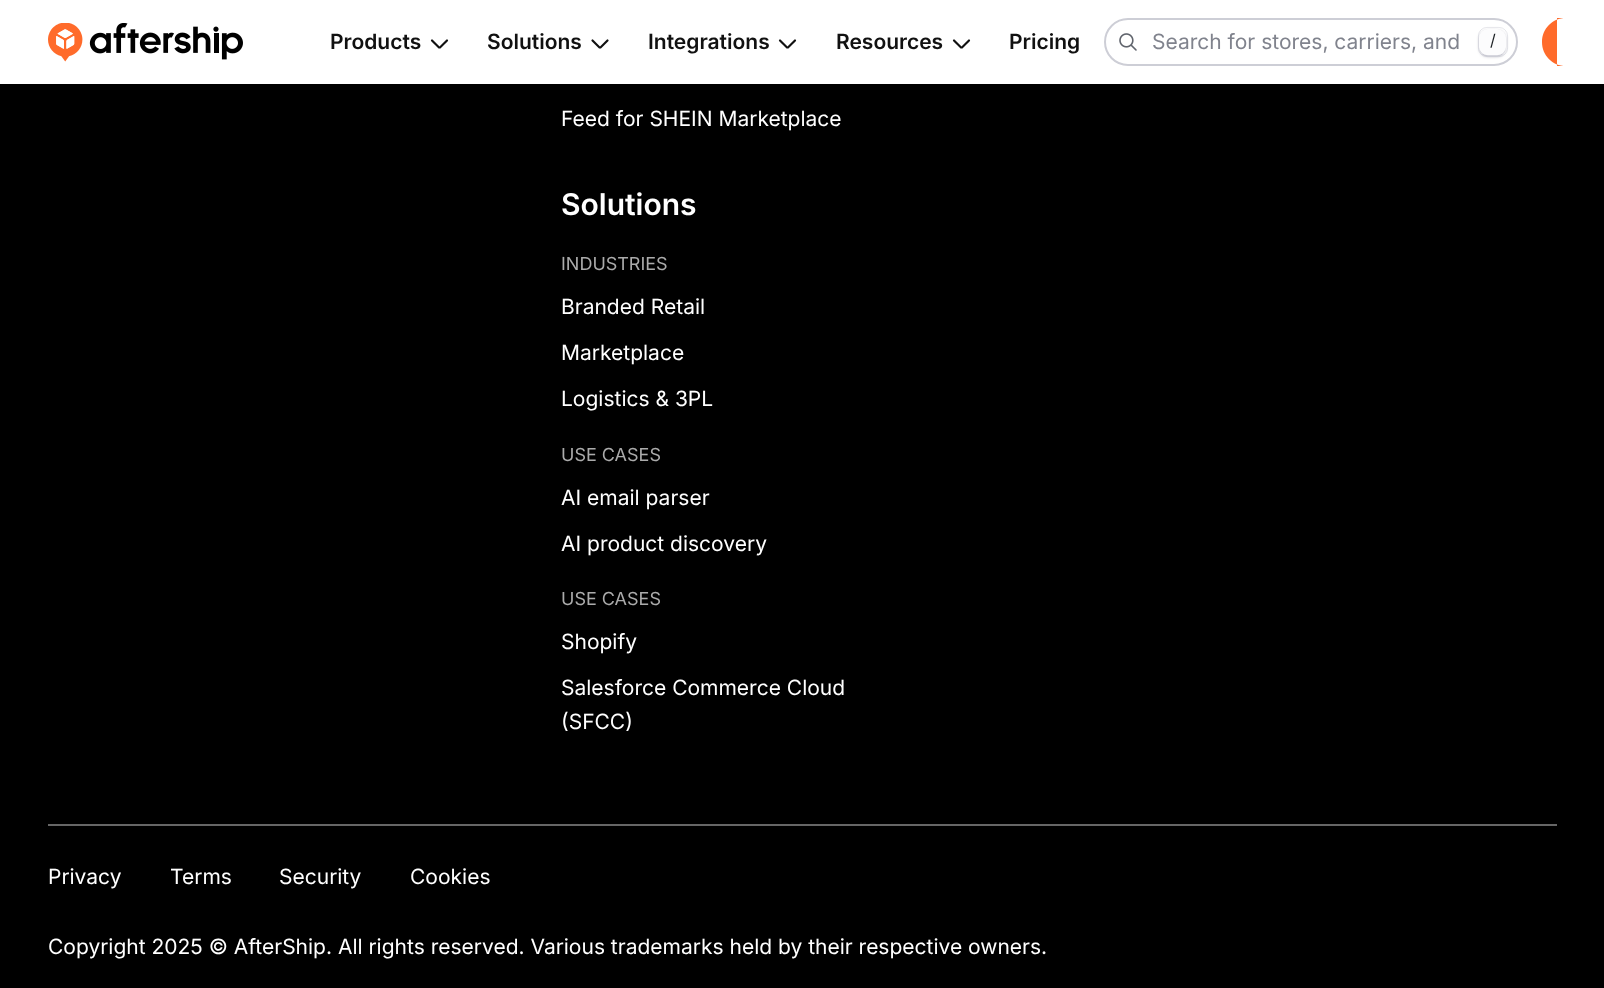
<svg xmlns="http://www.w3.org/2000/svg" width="1604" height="988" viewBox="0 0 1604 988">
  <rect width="100%" height="100%" fill="#000"/>
  <path d="M0 0h1604v84H0z" fill="#fff"/>
  <image x="48" y="23" width="195" height="39" href="img/1.png"/>
  <path d="M432 40.5L439 47.5H440L447 40.5" fill="none" stroke="#111" stroke-width="2.2" stroke-linecap="round"/>
  <path d="M592.5 40.5L599.5 47.5H600.5L607.5 40.5" fill="none" stroke="#111" stroke-width="2.2" stroke-linecap="round"/>
  <path d="M780 40.5L787 47.5H788L795 40.5" fill="none" stroke="#111" stroke-width="2.2" stroke-linecap="round"/>
  <path d="M954 40.5L961 47.5H962L969 40.5" fill="none" stroke="#111" stroke-width="2.2" stroke-linecap="round"/>
  <rect x="1105" y="19" width="412" height="46" rx="23" fill="none" stroke="#cdced6" stroke-width="2"/>
  <image x="1119" y="33" width="18" height="18" href="img/2.png"/>
  <rect x="1479" y="30" width="27" height="27" rx="9" fill="#00062e33" filter="blur(1.5px)"/>
  <rect x="1478.4" y="27.4" width="29.2" height="29.2" rx="8.6" fill="none" stroke="#0009321f" stroke-width="0.8"/>
  <rect x="1479" y="29" width="27" height="27" rx="9" fill="#fcfcfd"/>
  <path d="M1479 46C1479 50.5 1481.5 55 1486 56H1499C1503.5 55 1506 50.5 1506 46C1506 51 1502 55 1498 55H1487C1483 55 1479 51 1479 46Z" fill="#00002f26"/>
  <path d="M1566 18H1557V66H1566C1552.5 66 1542 55.5 1542 42C1542 28.5 1552.5 18 1566 18Z" fill="#ff6b2b"/>
  <path d="M48 824h1509v2H48z" fill="#666"/>
  <g font-family="Inter" font-size="21" font-weight="600" fill="#111">
    <text x="330" y="49">Products</text>
    <text x="487" y="49">Solutions</text>
    <text x="648" y="49">Integrations</text>
    <text x="836" y="49">Resources</text>
    <text x="1009" y="49">Pricing</text>
  </g>
  <text x="1152" y="49" font-family="Inter" font-size="21" fill="#80838d">Search for stores, carriers, and</text>
  <text x="1490" y="46" font-family="Inter" font-size="16" fill="#1c2024">/</text>
  <text x="561" y="126" font-family="Inter" font-size="21" fill="#fff">Feed for SHEIN Marketplace</text>
  <text x="561" y="215" font-family="Inter" font-size="30" font-weight="600" fill="#fff">Solutions</text>
  <text x="561" y="270" font-family="Inter" font-size="18" fill="#ababab">INDUSTRIES</text>
  <g font-family="Inter" font-size="21" fill="#fff">
    <text x="561" y="314">Branded Retail</text>
    <text x="561" y="360">Marketplace</text>
    <text x="561" y="406">Logistics &amp; 3PL</text>
  </g>
  <text x="561" y="461" font-family="Inter" font-size="18" fill="#ababab">USE CASES</text>
  <g font-family="Inter" font-size="21" fill="#fff">
    <text x="561" y="505">AI email parser</text>
    <text x="561" y="551">AI product discovery</text>
  </g>
  <text x="561" y="605" font-family="Inter" font-size="18" fill="#ababab">USE CASES</text>
  <g font-family="Inter" font-size="21" fill="#fff">
    <text x="561" y="649">Shopify</text>
    <text x="561" y="695">Salesforce Commerce Cloud</text>
    <text x="561" y="729">(SFCC)</text>
    <text x="48" y="884">Privacy</text>
    <text x="170" y="884">Terms</text>
    <text x="279" y="884">Security</text>
    <text x="410" y="884">Cookies</text>
    <text x="48" y="954">Copyright 2025 © AfterShip. All rights reserved. Various trademarks held by their respective owners.</text>
  </g>
</svg>
